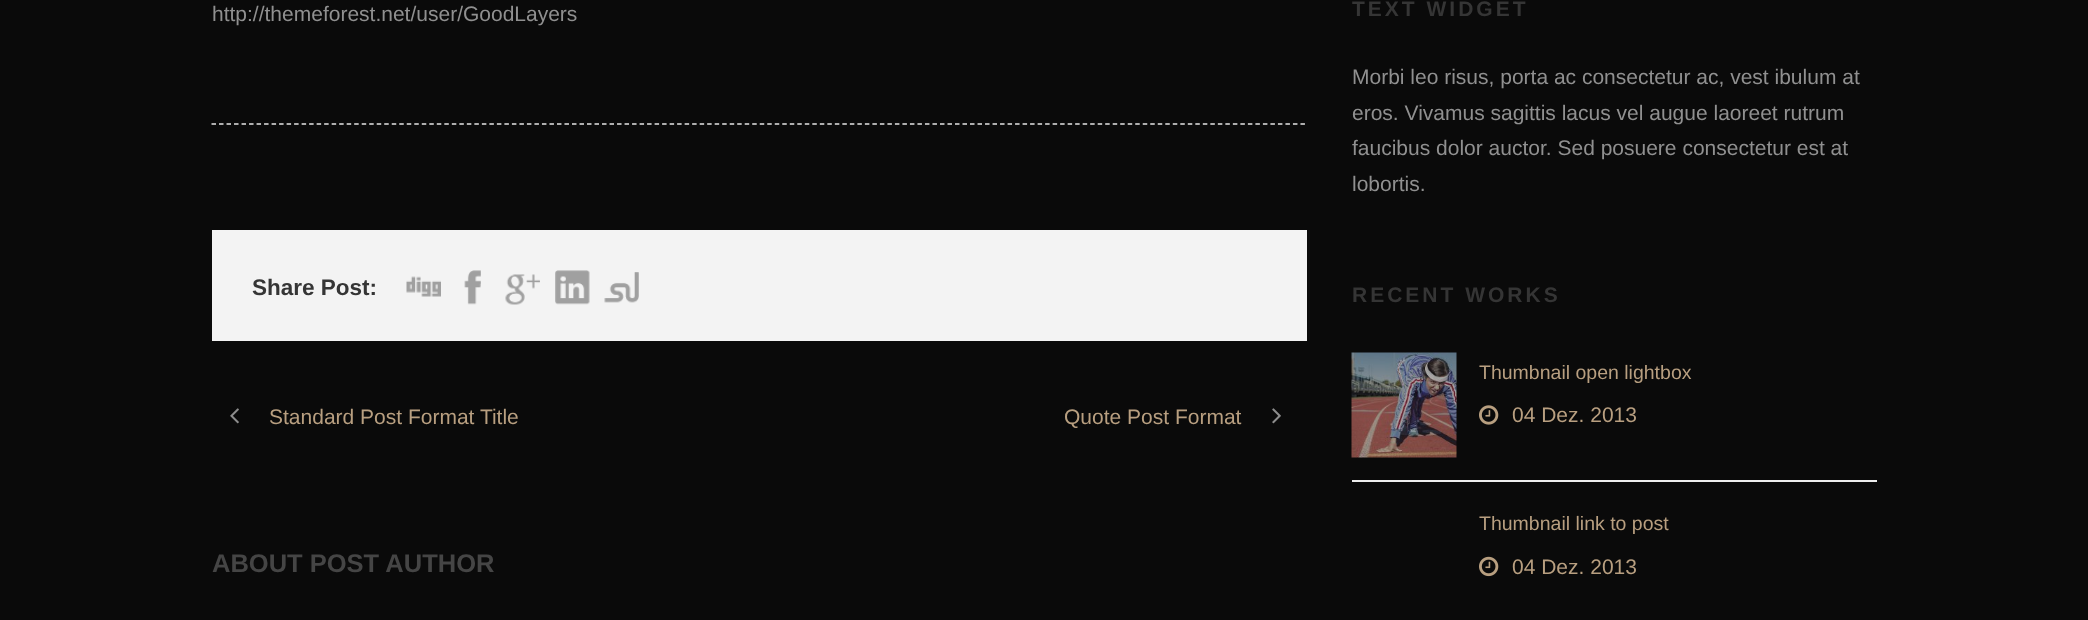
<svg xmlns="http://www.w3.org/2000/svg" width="2088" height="620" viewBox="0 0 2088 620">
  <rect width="100%" height="100%" fill="#0a0a0a"/>
  <path d="M211.5 124H1306.5" fill="none" stroke="#e5e5e5" stroke-width="1.5" stroke-dasharray="4.5 3.01"/>
  <path d="M212 230h1095v111H212z" fill="#f3f3f3"/>
  <image x="406" y="276" width="35" height="21" href="img/1.png"/>
  <image x="464" y="270" width="17" height="35" href="img/2.png"/>
  <image x="505" y="274" width="35" height="31" href="img/3.png"/>
  <image x="555" y="270" width="35" height="35" href="img/4.png"/>
  <image x="604" y="272" width="35" height="31" href="img/5.png"/>
  <image x="230" y="408" width="9" height="16" href="img/6.png"/>
  <image x="1272" y="408" width="9" height="16" href="img/7.png"/>
  <path d="M1352 480h525v2H1352z" fill="#eee"/>
  <image x="1351" y="352" width="106" height="106" href="img/8.png"/>
  <image x="1479" y="405" width="20" height="20" href="img/9.png"/>
  <image x="1479" y="556" width="20" height="21" href="img/10.png"/>
  <text x="212" y="21" font-family="Liberation Sans" font-size="21" fill="#909090">http://themeforest.net/user/GoodLayers</text>
  <text x="252" y="295" font-family="Liberation Sans" font-size="22.5" font-weight="bold" fill="#353535">Share Post:</text>
  <g font-family="Liberation Sans" font-size="21" fill="#b89f80">
    <text x="269" y="424">Standard Post Format Title</text>
    <text x="1064" y="424">Quote Post Format</text>
  </g>
  <text x="212" y="572" font-family="Liberation Sans" font-size="25.5" font-weight="bold" fill="#454545">ABOUT POST AUTHOR</text>
  <text x="1352" y="16" font-family="Liberation Sans" font-size="21" font-weight="bold" letter-spacing="3" fill="#353535">TEXT WIDGET</text>
  <g font-family="Liberation Sans" font-size="21" fill="#909090">
    <text x="1352" y="84">Morbi leo risus, porta ac consectetur ac, vest ibulum at</text>
    <text x="1352" y="120">eros. Vivamus sagittis lacus vel augue laoreet rutrum</text>
    <text x="1352" y="155">faucibus dolor auctor. Sed posuere consectetur est at</text>
    <text x="1352" y="191">lobortis.</text>
  </g>
  <text x="1352" y="302" font-family="Liberation Sans" font-size="21" font-weight="bold" letter-spacing="3" fill="#353535">RECENT WORKS</text>
  <text x="1479" y="379" font-family="Liberation Sans" font-size="19.5" fill="#b89f80">Thumbnail open lightbox</text>
  <text x="1512" y="422" font-family="Liberation Sans" font-size="21" fill="#b89f80">04 Dez. 2013</text>
  <text x="1479" y="530" font-family="Liberation Sans" font-size="19.5" fill="#b89f80">Thumbnail link to post</text>
  <text x="1512" y="574" font-family="Liberation Sans" font-size="21" fill="#b89f80">04 Dez. 2013</text>
</svg>
